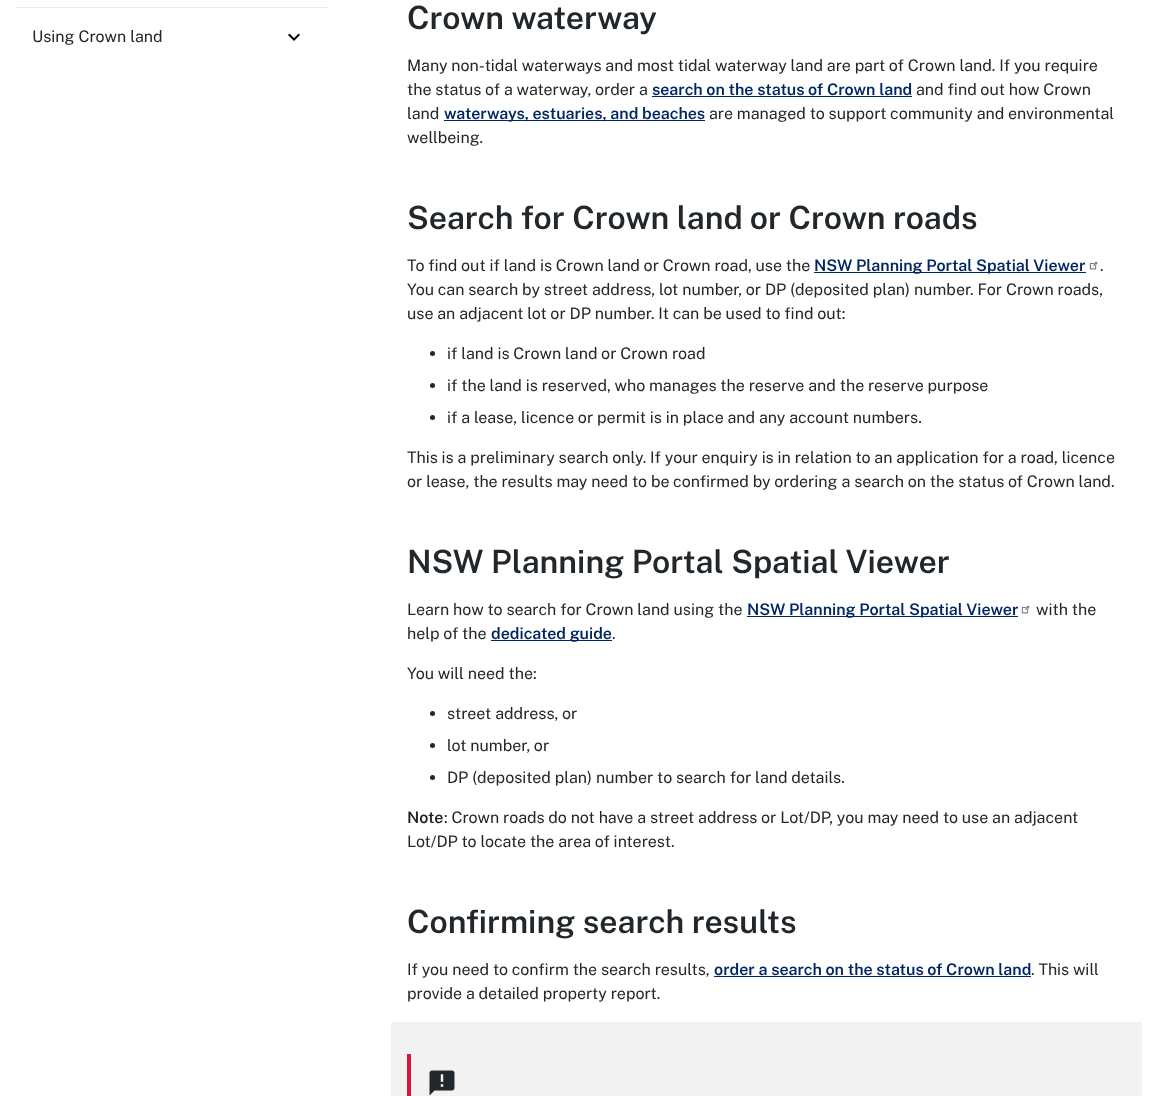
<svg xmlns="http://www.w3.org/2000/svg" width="1158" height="1096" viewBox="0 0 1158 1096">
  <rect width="100%" height="100%" fill="#fff"/>
  <path d="M16 7h312v1H16z" fill="#ebebeb"/>
  <image x="288" y="33" width="12" height="8" href="img/1.png"/>
  <path d="M652 96h260v1H652z" fill="#002664"/>
  <path d="M444 120h261v1H444z" fill="#002664"/>
  <path d="M814 272h272v1H814z" fill="#002664"/>
  <image x="1089" y="261" width="9" height="9" href="img/2.png"/>
  <circle cx="432.5" cy="353.5" r="2.5" fill="#22272b"/>
  <circle cx="432.5" cy="385.5" r="2.5" fill="#22272b"/>
  <circle cx="432.5" cy="417.5" r="2.5" fill="#22272b"/>
  <path d="M747 616h271v1H747z" fill="#002664"/>
  <image x="1021" y="605" width="9" height="9" href="img/2.png"/>
  <path d="M491 640h121v1H491z" fill="#002664"/>
  <circle cx="432.5" cy="713.5" r="2.5" fill="#22272b"/>
  <circle cx="432.5" cy="745.5" r="2.5" fill="#22272b"/>
  <circle cx="432.5" cy="777.5" r="2.5" fill="#22272b"/>
  <path d="M714 976h317v1H714z" fill="#002664"/>
  <path d="M391 1022h751v74H391z" fill="#f2f2f2"/>
  <path d="M407 1054h4v42H407z" fill="#d7153a"/>
  <image x="429" y="1070" width="26" height="26" href="img/3.png"/>
  <text x="32" y="42" font-family="Public Sans" font-size="16" fill="#22272b">Using Crown land</text>
  <text x="407" y="29" font-family="Public Sans" font-size="32" font-weight="600" fill="#22272b">Crown waterway</text>
  <g font-family="Public Sans" font-size="16" fill="#22272b">
    <text x="407" y="71">Many non-tidal waterways and most tidal waterway land are part of Crown land. If you require</text>
    <text x="407" y="95">the status of a waterway, order a</text>
  </g>
  <text x="652" y="95" font-family="Public Sans" font-size="16" font-weight="600" fill="#002664">search on the status of Crown land</text>
  <g font-family="Public Sans" font-size="16" fill="#22272b">
    <text x="916" y="95">and find out how Crown</text>
    <text x="407" y="119">land</text>
  </g>
  <text x="444" y="119" font-family="Public Sans" font-size="16" font-weight="600" fill="#002664">waterways, estuaries, and beaches</text>
  <g font-family="Public Sans" font-size="16" fill="#22272b">
    <text x="709" y="119">are managed to support community and environmental</text>
    <text x="407" y="143">wellbeing.</text>
  </g>
  <text x="407" y="229" font-family="Public Sans" font-size="32" font-weight="600" fill="#22272b">Search for Crown land or Crown roads</text>
  <text x="407" y="271" font-family="Public Sans" font-size="16" fill="#22272b">To find out if land is Crown land or Crown road, use the</text>
  <text x="814" y="271" font-family="Public Sans" font-size="16" font-weight="600" fill="#002664">NSW Planning Portal Spatial Viewer</text>
  <g font-family="Public Sans" font-size="16" fill="#22272b">
    <text x="1100" y="271">.</text>
    <text x="407" y="295">You can search by street address, lot number, or DP (deposited plan) number. For Crown roads,</text>
    <text x="407" y="319">use an adjacent lot or DP number. It can be used to find out:</text>
    <text x="447" y="359">if land is Crown land or Crown road</text>
    <text x="447" y="391">if the land is reserved, who manages the reserve and the reserve purpose</text>
    <text x="447" y="423">if a lease, licence or permit is in place and any account numbers.</text>
    <text x="407" y="463">This is a preliminary search only. If your enquiry is in relation to an application for a road, licence</text>
    <text x="407" y="487">or lease, the results may need to be confirmed by ordering a search on the status of Crown land.</text>
  </g>
  <text x="407" y="573" font-family="Public Sans" font-size="32" font-weight="600" fill="#22272b">NSW Planning Portal Spatial Viewer</text>
  <text x="407" y="615" font-family="Public Sans" font-size="16" fill="#22272b">Learn how to search for Crown land using the</text>
  <text x="747" y="615" font-family="Public Sans" font-size="16" font-weight="600" fill="#002664">NSW Planning Portal Spatial Viewer</text>
  <g font-family="Public Sans" font-size="16" fill="#22272b">
    <text x="1036" y="615">with the</text>
    <text x="407" y="639">help of the</text>
  </g>
  <text x="491" y="639" font-family="Public Sans" font-size="16" font-weight="600" fill="#002664">dedicated guide</text>
  <g font-family="Public Sans" font-size="16" fill="#22272b">
    <text x="612" y="639">.</text>
    <text x="407" y="679">You will need the:</text>
    <text x="447" y="719">street address, or</text>
    <text x="447" y="751">lot number, or</text>
    <text x="447" y="783">DP (deposited plan) number to search for land details.</text>
  </g>
  <text x="407" y="823" font-family="Public Sans" font-size="16" font-weight="600" fill="#22272b">Note</text>
  <g font-family="Public Sans" font-size="16" fill="#22272b">
    <text x="444" y="823">: Crown roads do not have a street address or Lot/DP, you may need to use an adjacent</text>
    <text x="407" y="847">Lot/DP to locate the area of interest.</text>
  </g>
  <text x="407" y="933" font-family="Public Sans" font-size="32" font-weight="600" fill="#22272b">Confirming search results</text>
  <text x="407" y="975" font-family="Public Sans" font-size="16" fill="#22272b">If you need to confirm the search results,</text>
  <text x="714" y="975" font-family="Public Sans" font-size="16" font-weight="600" fill="#002664">order a search on the status of Crown land</text>
  <g font-family="Public Sans" font-size="16" fill="#22272b">
    <text x="1031" y="975">. This will</text>
    <text x="407" y="999">provide a detailed property report.</text>
  </g>
</svg>
